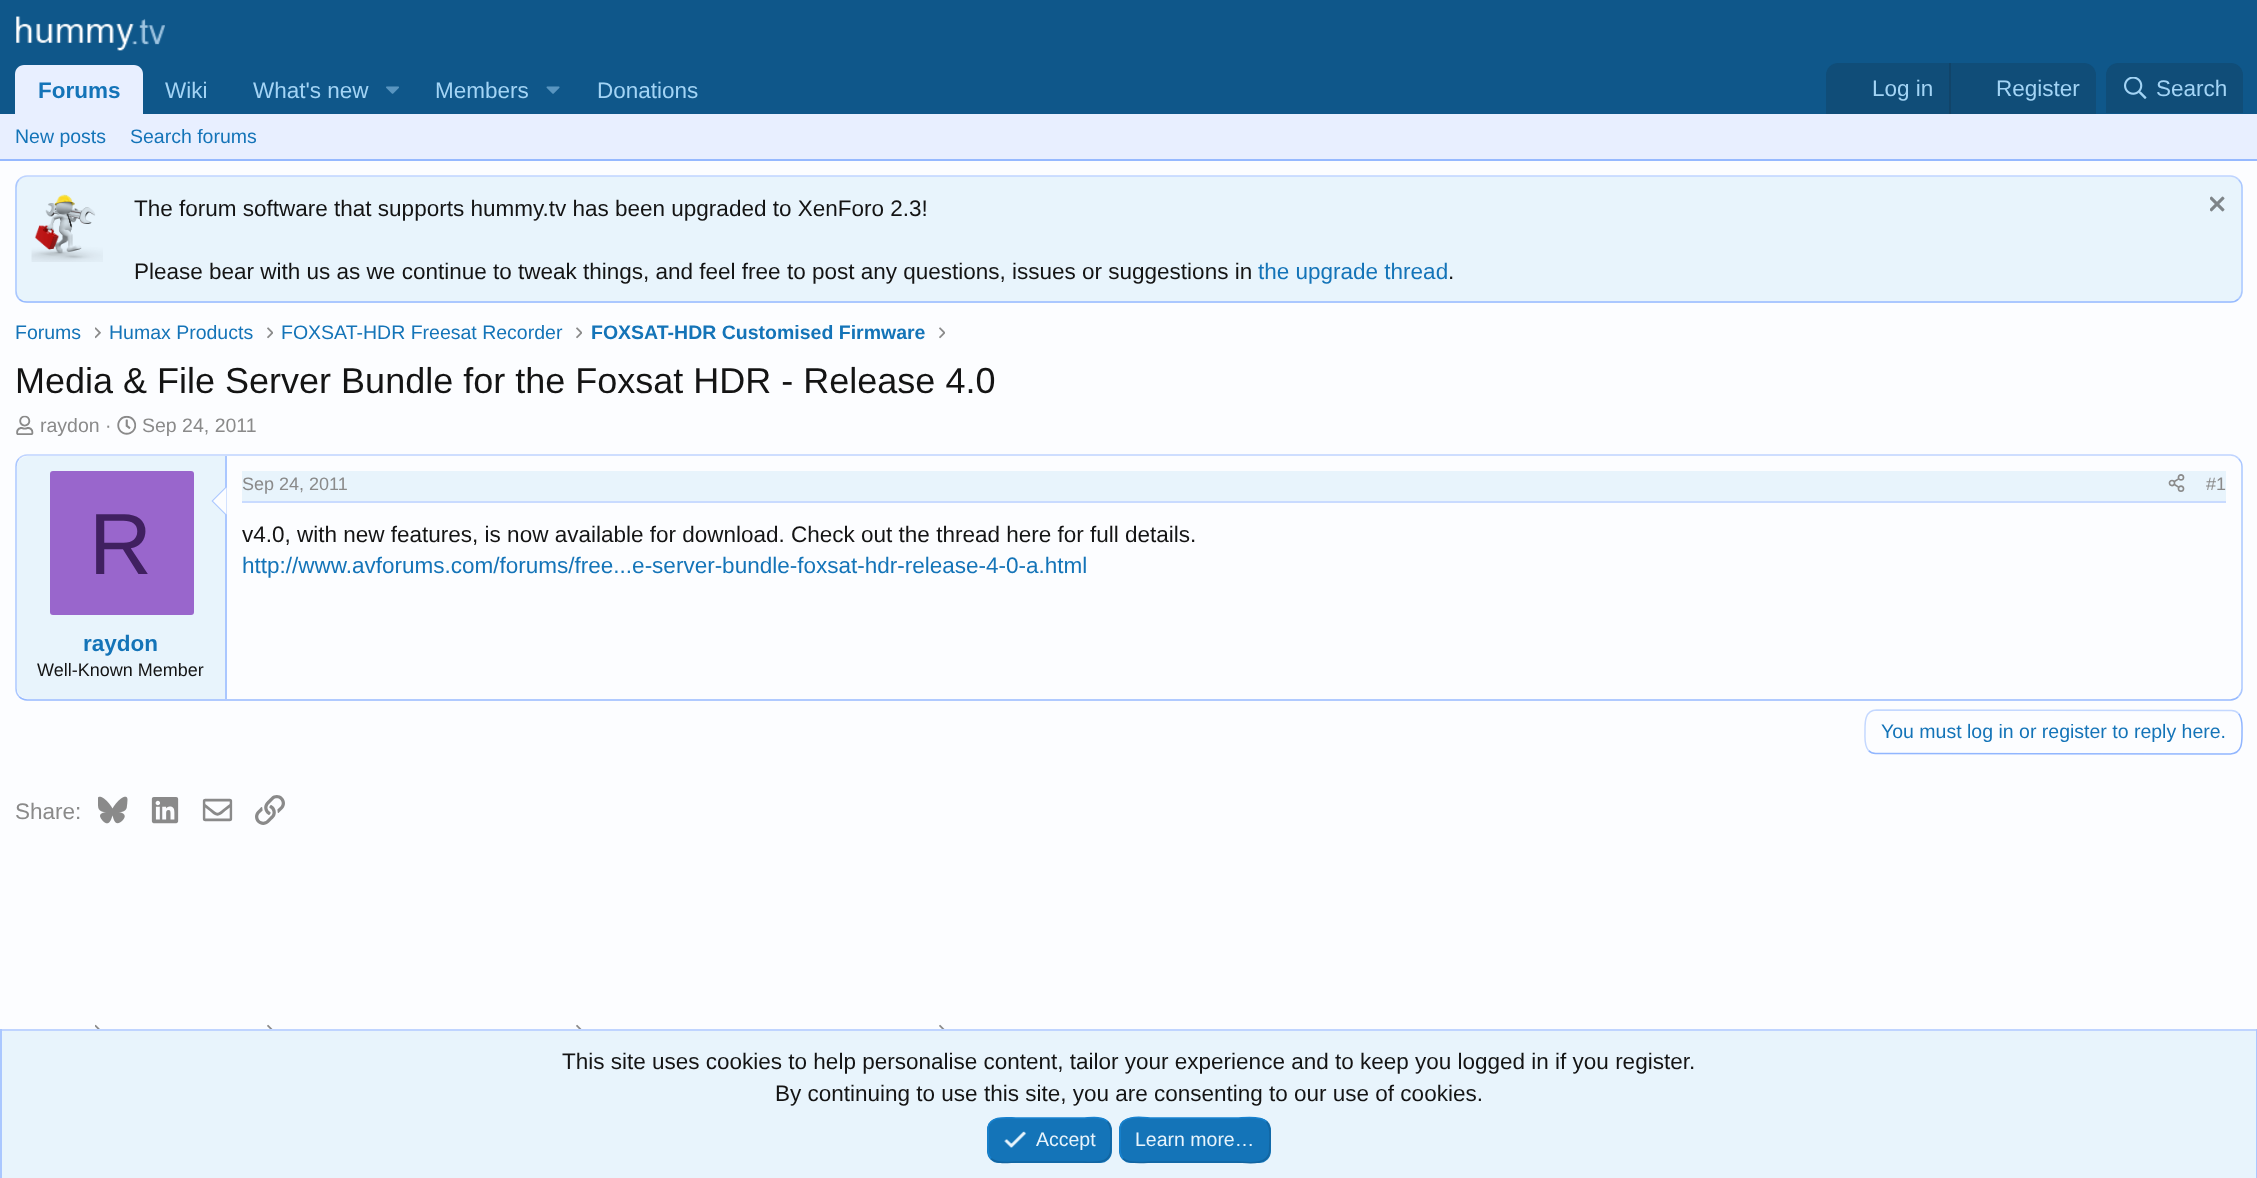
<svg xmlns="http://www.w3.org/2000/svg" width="2257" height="1178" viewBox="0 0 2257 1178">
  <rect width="100%" height="100%" fill="#fcfdff"/>
  <path d="M0 0h2257v114H0z" fill="#0f578a"/>
  <image x="16" y="16" width="149" height="35" href="img/1.png"/>
  <path d="M24 65H134C139 65 143 69 143 74V114H15V74C15 69 19 65 24 65Z" fill="#e8efff"/>
  <image x="386" y="86" width="13" height="8" href="img/2.png"/>
  <image x="546" y="86" width="14" height="8" href="img/3.png"/>
  <path d="M1838 63H2084C2090.5 63 2096 68.5 2096 75V114H1826V75C1826 68.5 1831.5 63 1838 63Z" fill="#104d78"/>
  <path d="M1949 63h2v51H1949z" fill="#114469"/>
  <path d="M2118 63H2231C2237.5 63 2243 68.5 2243 75V113H2106V75C2106 68.5 2111.5 63 2118 63Z" fill="#104d78"/>
  <image x="2124" y="77" width="23" height="22" href="img/4.png"/>
  <path d="M0 114h2257v45H0z" fill="#e8efff"/>
  <path d="M0 159h2257v2H0z" fill="#96b9ff"/>
  <rect x="15" y="176" width="2228" height="127" rx="12" fill="#e8f4fc"/>
  <path d="M19 179.5C21 177.5 24 176 27 176H2230.5C2233.5 176 2236.5 177.5 2238.5 179.5" fill="none" stroke="#bfd4ff" stroke-width="1.5"/>
  <path d="M2238.5 179.5C2240.5 181.5 2242 184.5 2242 187.5V291C2242 294 2240.5 297 2238.5 299" fill="none" stroke="#aac7ff" stroke-width="1.5"/>
  <path d="M2238.5 299C2236.5 301 2233.5 302 2230.5 302H27C24 302 21 301 19 299" fill="none" stroke="#96b9ff" stroke-width="1.5"/>
  <path d="M19 299C17 297 16 294 16 291V187.5C16 184.5 17 181.5 19 179.5" fill="none" stroke="#aac7ff" stroke-width="1.5"/>
  <image x="31" y="194" width="72" height="68" href="img/5.png"/>
  <image x="2210" y="196" width="15" height="16" href="img/6.png"/>
  <image x="95" y="327" width="6" height="12" href="img/7.png"/>
  <image x="267" y="327" width="6" height="12" href="img/8.png"/>
  <image x="576" y="327" width="6" height="12" href="img/8.png"/>
  <image x="939" y="327" width="6" height="12" href="img/8.png"/>
  <image x="16" y="415" width="18" height="20" href="img/9.png"/>
  <image x="117" y="415" width="20" height="20" href="img/10.png"/>
  <path d="M19 458.5C21 456.5 24 455 27 455H2230.5C2233.5 455 2236.5 456.5 2238.5 458.5" fill="none" stroke="#bfd4ff" stroke-width="1.5"/>
  <path d="M2238.5 458.5C2240.5 460.5 2242 463.5 2242 466.5V688.5C2242 691.5 2240.5 694.5 2238.5 696.5" fill="none" stroke="#aac7ff" stroke-width="1.5"/>
  <path d="M2238.5 696.5C2236.5 698.5 2233.5 700 2230.5 700H27C24 700 21 698.5 19 696.5" fill="none" stroke="#96b9ff" stroke-width="1.5"/>
  <path d="M19 696.5C17 694.5 16 691.5 16 688.5V466.5C16 463.5 17 460.5 19 458.5" fill="none" stroke="#aac7ff" stroke-width="1.5"/>
  <path d="M28 456H227V699H28C22 699 17 694 17 688V467C17 461 22 456 28 456Z" fill="#e8f4fc"/>
  <path d="M225 456h2v243H225z" fill="#aac7ff"/>
  <path d="M226.5 486V516L211.5 501Z" fill="#aac7ff"/>
  <path d="M226.5 487.5V514.5L213 501Z" fill="#fcfdff"/>
  <rect x="50" y="471" width="144" height="144" rx="3" fill="#96c"/>
  <path d="M242 471h1984v30H242z" fill="#e8f4fc"/>
  <path d="M242 501h1984v2H242z" fill="#c9dbff"/>
  <image x="2168" y="474" width="17" height="18" href="img/11.png"/>
  <path d="M2238.5 713.5C2243 718.5 2242 726 2242 732C2242 740.5 2243 753.5 2230.5 754L1875.5 753.5C1873 753.5 1870.5 752.5 1868.5 750.5" fill="none" stroke="#91b6ff" stroke-width="1.5"/>
  <path d="M1868.5 750.5C1864 745.5 1865 738 1865 732C1865 723.5 1864 710.5 1876.5 710L2231.5 710.5C2234 710.5 2236.5 711.5 2238.5 713.5" fill="none" stroke="#c4d8ff" stroke-width="1.5"/>
  <image x="98" y="796" width="30" height="28" href="img/12.png"/>
  <image x="151" y="797" width="28" height="27" href="img/13.png"/>
  <image x="202" y="798" width="31" height="24" href="img/14.png"/>
  <image x="255" y="795" width="30" height="30" href="img/15.png"/>
  <image x="95" y="1024" width="5" height="5" href="img/16.png"/>
  <image x="267" y="1024" width="6" height="5" href="img/17.png"/>
  <image x="576" y="1024" width="6" height="5" href="img/17.png"/>
  <image x="939" y="1024" width="6" height="5" href="img/17.png"/>
  <path d="M2 1031h2254v147H2z" fill="#e8f4fc"/>
  <path d="M0 1029h2257v2H0z" fill="#bfd4ff"/>
  <path d="M2256 1029h1v149H2256z" fill="#aac7ff"/>
  <path d="M0 1029h2v149H0z" fill="#aac7ff"/>
  <rect x="987" y="1118" width="125" height="45" rx="12" fill="#1474b8"/>
  <path d="M1107.5 1121.5C1112 1126.5 1111 1134 1111 1140L1110.5 1152.5C1108 1165 1091 1162 1083 1162H1016C1009.5 1162 997 1164.5 991 1158.5" fill="none" stroke="#1265a1" stroke-width="1.5"/>
  <path d="M991 1158.5C986.5 1153.5 988 1146 988 1140V1127.5C990.5 1115 1007.5 1118 1016 1118H1083C1089 1118 1101.5 1115.5 1107.5 1121.5" fill="none" stroke="#1782cf" stroke-width="1.5"/>
  <image x="1004" y="1131" width="23" height="17" href="img/18.png"/>
  <rect x="1119" y="1118" width="152" height="45" rx="12" fill="#1474b8"/>
  <path d="M1266.5 1121.5C1271 1126.5 1270 1134 1270 1140L1269.5 1152.5C1267 1166.5 1245 1162 1237 1162H1152C1147 1162 1129.5 1165 1123 1158.5" fill="none" stroke="#1265a1" stroke-width="1.5"/>
  <path d="M1123 1158.5C1118.5 1153.5 1120 1146 1120 1140V1127.5C1122.5 1113.5 1144.5 1118 1152 1118H1237C1242.5 1118 1260 1115 1266.5 1121.5" fill="none" stroke="#1782cf" stroke-width="1.5"/>
  <text x="38" y="98" font-family="Liberation Sans" font-size="22.5" font-weight="bold" fill="#1474b8">Forums</text>
  <g font-family="Liberation Sans" font-size="22.5" fill="#a3d4f5">
    <text x="165" y="98">Wiki</text>
    <text x="253" y="98">What's new</text>
    <text x="435" y="98">Members</text>
    <text x="597" y="98">Donations</text>
    <text x="1872" y="96">Log in</text>
    <text x="1996" y="96">Register</text>
    <text x="2156" y="96">Search</text>
  </g>
  <g font-family="Liberation Sans" font-size="19.5" fill="#1474b8">
    <text x="15" y="143">New posts</text>
    <text x="130" y="143">Search forums</text>
  </g>
  <g font-family="Liberation Sans" font-size="22.5" fill="#141414">
    <text x="134" y="216">The forum software that supports hummy.tv has been upgraded to XenForo 2.3!</text>
    <text x="134" y="279">Please bear with us as we continue to tweak things, and feel free to post any questions, issues or suggestions in</text>
  </g>
  <text x="1258" y="279" font-family="Liberation Sans" font-size="22.5" fill="#1474b8">the upgrade thread</text>
  <text x="1448" y="279" font-family="Liberation Sans" font-size="22.5" fill="#141414">.</text>
  <g font-family="Liberation Sans" font-size="19.5" fill="#1474b8">
    <text x="15" y="339">Forums</text>
    <text x="109" y="339">Humax Products</text>
    <text x="281" y="339">FOXSAT-HDR Freesat Recorder</text>
  </g>
  <text x="591" y="339" font-family="Liberation Sans" font-size="19.5" font-weight="bold" fill="#1474b8">FOXSAT-HDR Customised Firmware</text>
  <text x="15" y="393" font-family="Liberation Sans" font-size="36" fill="#141414">Media &amp; File Server Bundle for the Foxsat HDR - Release 4.0</text>
  <g font-family="Liberation Sans" font-size="19.5" fill="#8a8a8a">
    <text x="40" y="432">raydon ·</text>
    <text x="142" y="432">Sep 24, 2011</text>
  </g>
  <text x="89" y="574" font-family="Liberation Sans" font-size="87" fill="#402060">R</text>
  <text x="83" y="651" font-family="Liberation Sans" font-size="22.5" font-weight="bold" fill="#1474b8">raydon</text>
  <text x="37" y="676" font-family="Liberation Sans" font-size="18" fill="#141414">Well-Known Member</text>
  <g font-family="Liberation Sans" font-size="18" fill="#8a8a8a">
    <text x="242" y="490">Sep 24, 2011</text>
    <text x="2206" y="490">#1</text>
  </g>
  <text x="242" y="542" font-family="Liberation Sans" font-size="22.5" fill="#141414">v4.0, with new features, is now available for download. Check out the thread here for full details.</text>
  <text x="242" y="573" font-family="Liberation Sans" font-size="22.5" fill="#1474b8">http://www.avforums.com/forums/free...e-server-bundle-foxsat-hdr-release-4-0-a.html</text>
  <text x="1881" y="738" font-family="Liberation Sans" font-size="19.5" fill="#1474b8">You must log in or register to reply here.</text>
  <text x="15" y="819" font-family="Liberation Sans" font-size="22.5" fill="#8a8a8a">Share:</text>
  <g font-family="Liberation Sans" font-size="22.5" fill="#141414">
    <text x="562" y="1069">This site uses cookies to help personalise content, tailor your experience and to keep you logged in if you register.</text>
    <text x="775" y="1101">By continuing to use this site, you are consenting to our use of cookies.</text>
  </g>
  <g font-family="Liberation Sans" font-size="19.5" fill="#e8f4fc">
    <text x="1036" y="1146">Accept</text>
    <text x="1135" y="1146">Learn more…</text>
  </g>
</svg>
